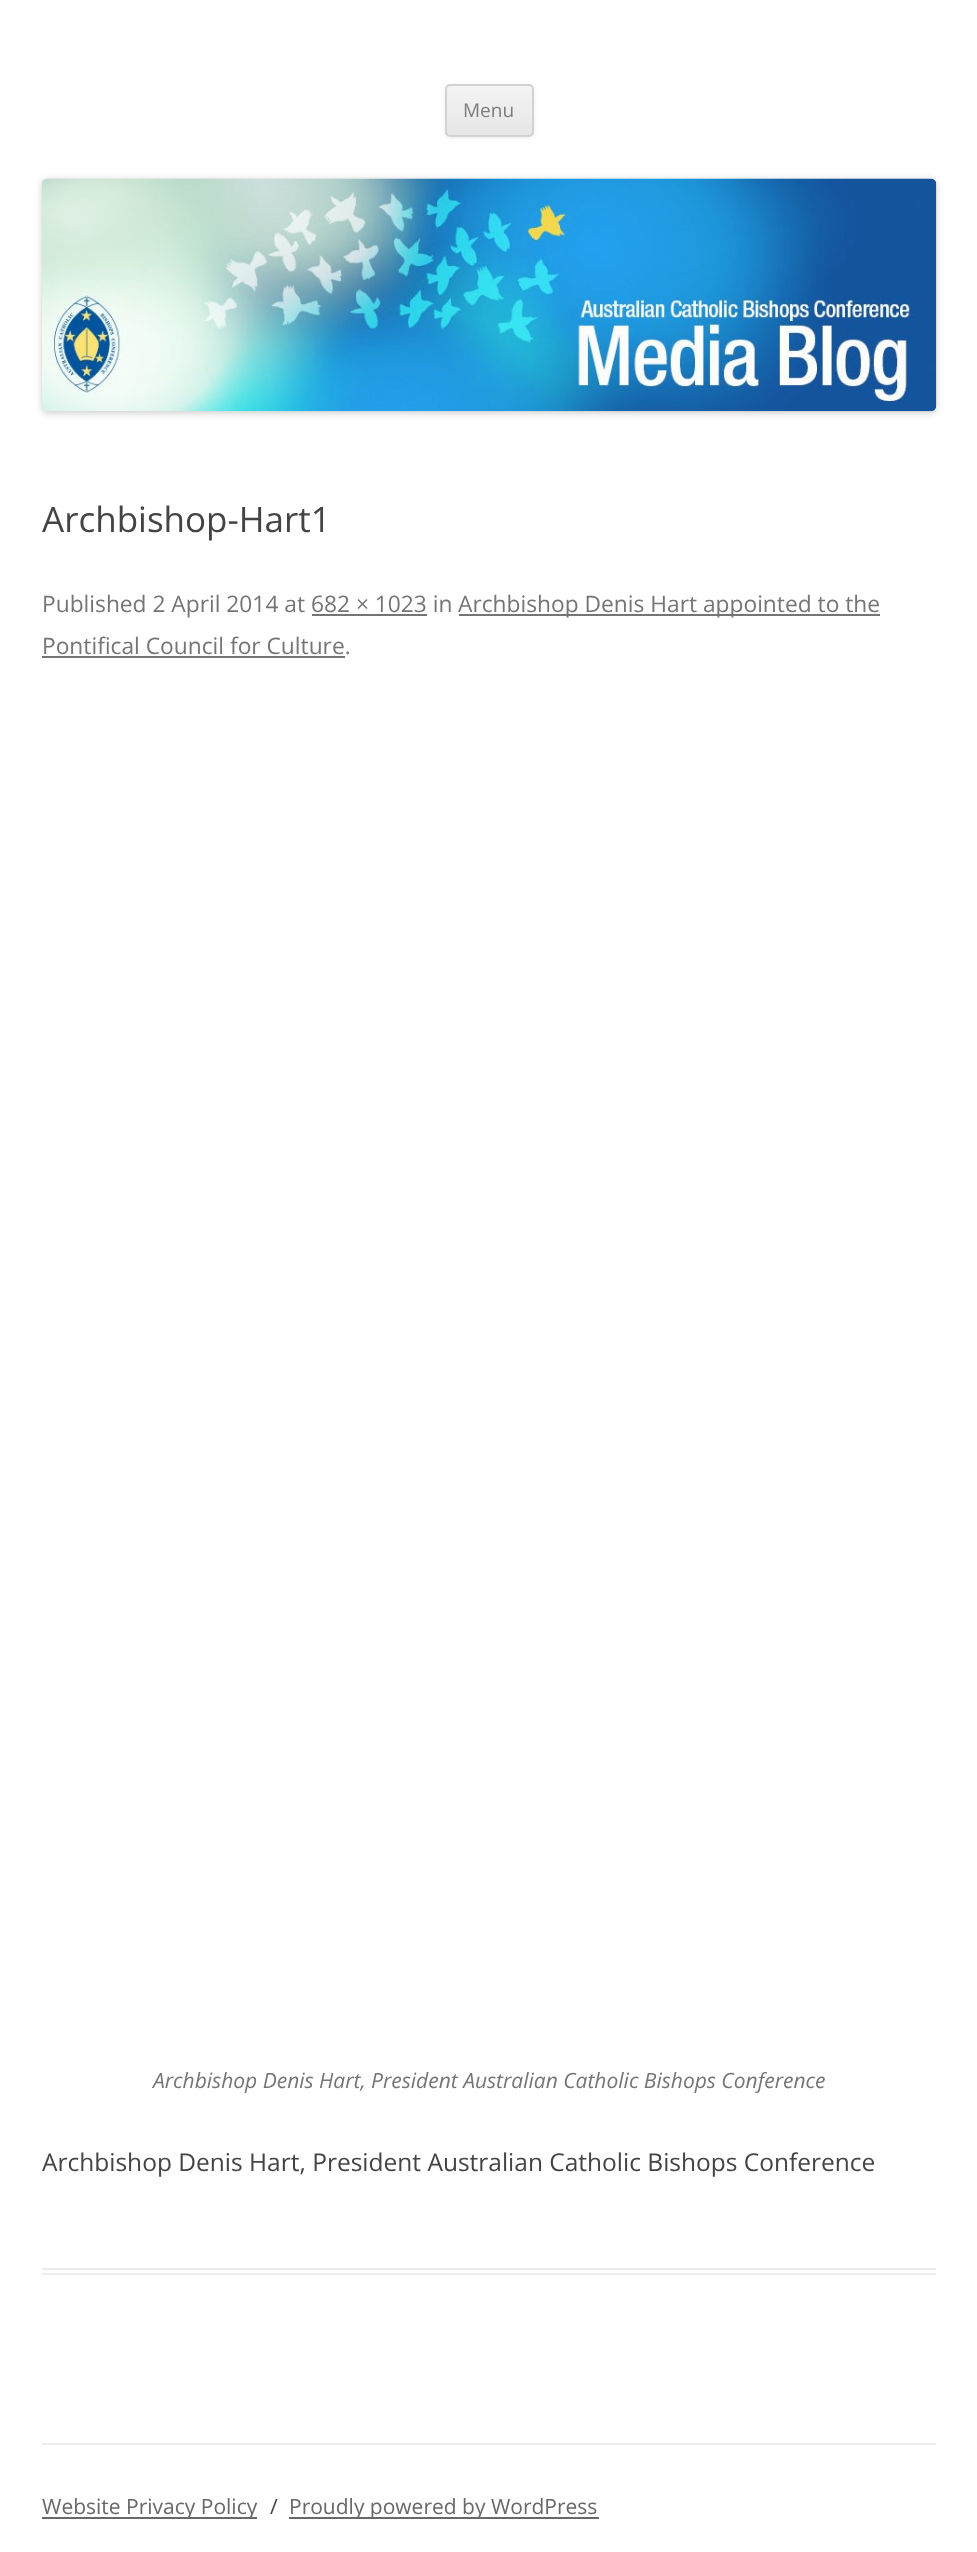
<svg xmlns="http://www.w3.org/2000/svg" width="977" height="2552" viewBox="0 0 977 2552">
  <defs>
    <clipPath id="clip1"><rect x="445" y="84" width="89" height="53" rx="5"/></clipPath>
    <linearGradient id="g1" gradientUnits="userSpaceOnUse" x1="489" y1="86" x2="489" y2="135"><stop offset="0" stop-color="#f4f4f4"/><stop offset="1" stop-color="#e6e6e6"/></linearGradient>
  </defs>
  <rect width="100%" height="100%" fill="#fff"/>
  <rect x="445" y="86" width="89" height="52" rx="5" fill="#4040401a" filter="blur(2px)"/>
  <g clip-path="url(#clip1)">
    <path d="M445 86h89v49H445z" fill="url(#g1)"/>
  </g>
  <rect x="446" y="85" width="87" height="51" rx="4" fill="none" stroke="#d2d2d2" stroke-width="2"/>
  <rect x="42" y="180" width="894" height="233" rx="5" fill="#00000033" filter="blur(3.5px)"/>
  <image x="42" y="178" width="895" height="234" href="img/1.png"/>
  <path d="M42 2268h894v2H42z" fill="#ededed"/>
  <path d="M42 2273h894v2H42z" fill="#ededed"/>
  <path d="M459 614h421v2H459z" fill="#757575"/>
  <path d="M312 614h115v2H312z" fill="#757575"/>
  <path d="M42 656h303v2H42z" fill="#757575"/>
  <path d="M42 2443h894v2H42z" fill="#ededed"/>
  <path d="M42 2517h215v2H42z" fill="#686868"/>
  <path d="M289 2517h310v2H289z" fill="#686868"/>
  <text x="463" y="117" font-family="Open Sans" font-size="19" fill="#7c7c7c">Menu</text>
  <text x="42" y="532" font-family="Open Sans" font-size="35" fill="#444">Archbishop-Hart1</text>
  <g font-family="Open Sans" font-size="22.75" fill="#757575">
    <text x="42" y="612">Published 2 April 2014 at 682 × 1023 in</text>
    <text x="458" y="612">Archbishop Denis Hart appointed to the</text>
    <text x="42" y="654">Pontifical Council for Culture.</text>
  </g>
  <text x="153" y="2088" font-family="Open Sans" font-size="21" font-style="italic" fill="#757575">Archbishop Denis Hart, President Australian Catholic Bishops Conference</text>
  <text x="42" y="2171" font-family="Open Sans" font-size="24.5" fill="#444">Archbishop Denis Hart, President Australian Catholic Bishops Conference</text>
  <text x="42" y="2514" font-family="Open Sans" font-size="21" fill="#686868">Website Privacy Policy</text>
  <text x="270" y="2514" font-family="Open Sans" font-size="21" fill="#444">/</text>
  <text x="289" y="2514" font-family="Open Sans" font-size="21" fill="#686868">Proudly powered by WordPress</text>
</svg>
